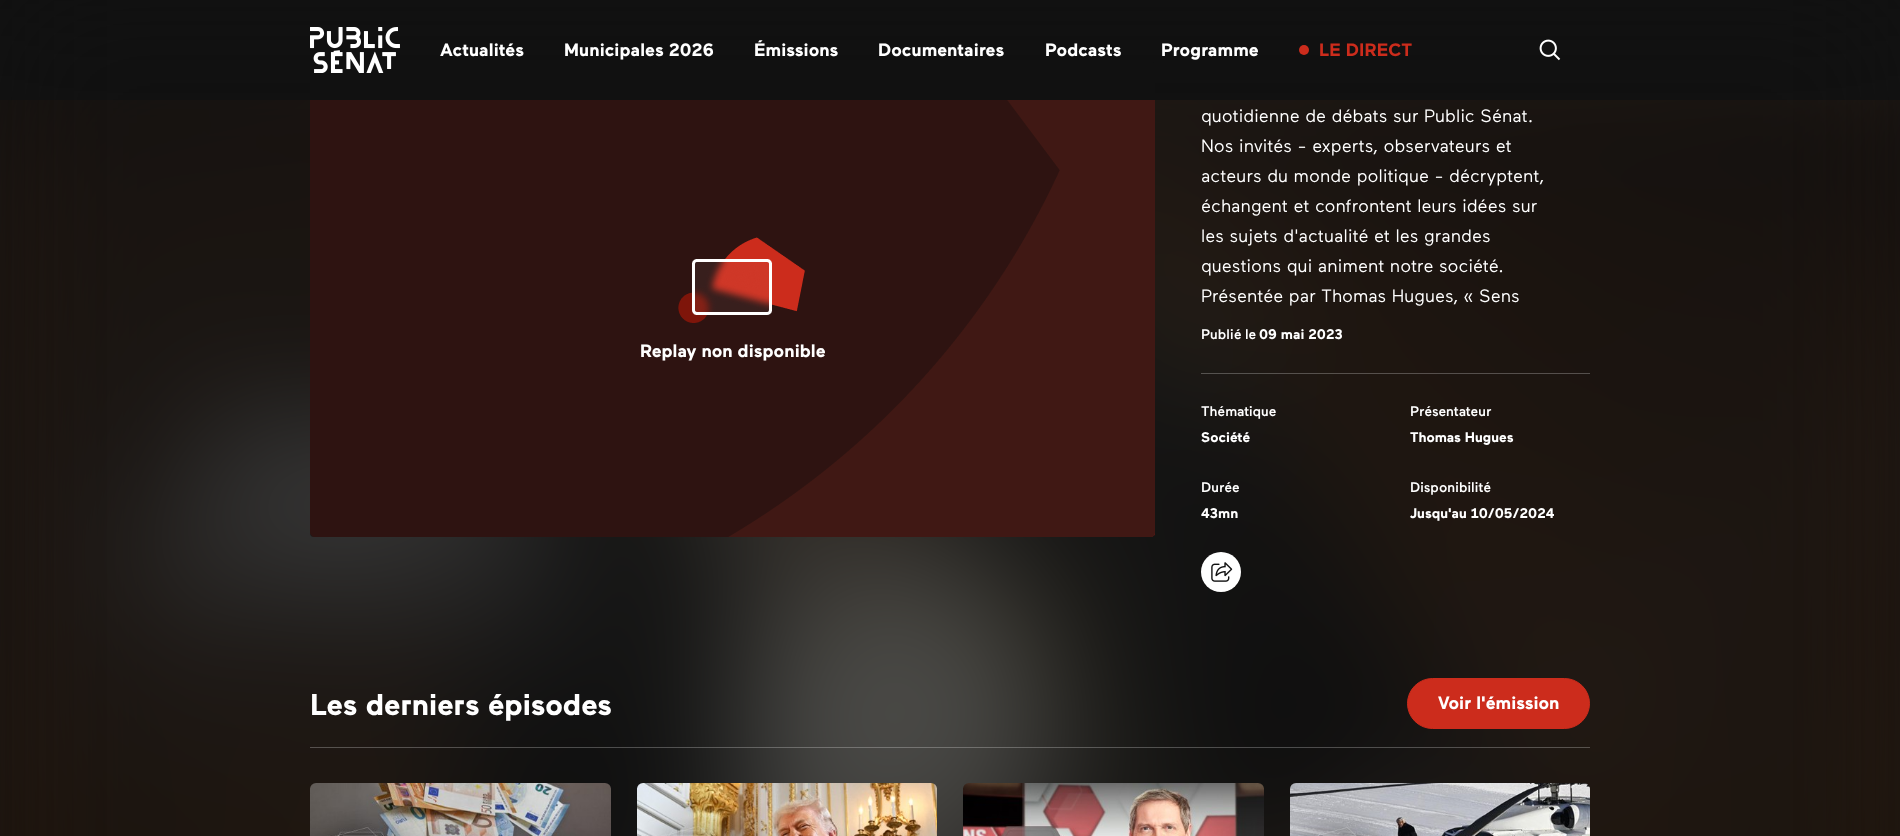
<svg xmlns="http://www.w3.org/2000/svg" width="1900" height="836" viewBox="0 0 1900 836">
  <rect width="100%" height="100%" fill="#111"/>
  <image x="0" y="100" width="1900" height="736" href="img/3.png"/>
  <path d="M0 -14h1900v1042H0z" fill="#111111bf" filter="blur(64px)"/>
  <image x="310" y="100" width="845" height="437" href="img/4.png"/>
  <rect x="310" y="62" width="845" height="475" rx="4" fill="#111111bf"/>
  <image x="310" y="27" width="90" height="46" href="img/1.png"/>
  <circle cx="1304" cy="50" r="5" fill="#cc2c1c"/>
  <image x="1539" y="39" width="22" height="22" href="img/2.png"/>
  <image x="678" y="237" width="127" height="86" href="img/5.png"/>
  <path d="M1201 373h389v1H1201z" fill="#ffffff40"/>
  <circle cx="1221" cy="572" r="20" fill="#fff"/>
  <image x="1211" y="562" width="22" height="20" href="img/6.png"/>
  <path d="M310 747h1280v1H310z" fill="#ffffff40"/>
  <rect x="1407.5" y="678.5" width="182" height="50" rx="25" fill="#cc2c1c" stroke="#cc2c1c"/>
  <image x="310" y="783" width="301" height="53" href="img/7.png"/>
  <image x="637" y="783" width="300" height="53" href="img/8.png"/>
  <image x="963" y="783" width="301" height="53" href="img/9.png"/>
  <image x="1290" y="783" width="300" height="53" href="img/10.png"/>
  <g font-family="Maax" font-size="18" font-weight="bold" fill="#fff">
    <text x="440" y="56">Actualités</text>
    <text x="564" y="56">Municipales 2026</text>
    <text x="754" y="56">Émissions</text>
    <text x="878" y="56">Documentaires</text>
    <text x="1045" y="56">Podcasts</text>
    <text x="1161" y="56">Programme</text>
  </g>
  <text x="1319" y="56" font-family="Maax" font-size="18" font-weight="bold" fill="#cc2c1c">LE DIRECT</text>
  <text x="640" y="357" font-family="Maax" font-size="18" font-weight="bold" fill="#fff">Replay non disponible</text>
  <g font-family="Maax" font-size="18" fill="#fff">
    <text x="1201" y="122">quotidienne de débats sur Public Sénat.</text>
    <text x="1201" y="152">Nos invités - experts, observateurs et</text>
    <text x="1201" y="182">acteurs du monde politique - décryptent,</text>
    <text x="1201" y="212">échangent et confrontent leurs idées sur</text>
    <text x="1201" y="242">les sujets d'actualité et les grandes</text>
    <text x="1201" y="272">questions qui animent notre société.</text>
    <text x="1201" y="302">Présentée par Thomas Hugues, « Sens</text>
  </g>
  <text x="1201" y="339" font-family="Maax" font-size="14" font-weight="500" fill="#fff">Publié le</text>
  <text x="1259" y="339" font-family="Maax" font-size="14" font-weight="bold" fill="#fff">09 mai 2023</text>
  <text x="1201" y="416" font-family="Maax" font-size="14" font-weight="500" fill="#fff">Thématique</text>
  <text x="1201" y="442" font-family="Maax" font-size="14" font-weight="bold" fill="#fff">Société</text>
  <text x="1410" y="416" font-family="Maax" font-size="14" font-weight="500" fill="#fff">Présentateur</text>
  <text x="1410" y="442" font-family="Maax" font-size="14" font-weight="bold" fill="#fff">Thomas Hugues</text>
  <text x="1201" y="492" font-family="Maax" font-size="14" font-weight="500" fill="#fff">Durée</text>
  <text x="1201" y="518" font-family="Maax" font-size="14" font-weight="bold" fill="#fff">43mn</text>
  <text x="1410" y="492" font-family="Maax" font-size="14" font-weight="500" fill="#fff">Disponibilité</text>
  <text x="1410" y="518" font-family="Maax" font-size="14" font-weight="bold" fill="#fff">Jusqu'au 10/05/2024</text>
  <text x="310" y="715" font-family="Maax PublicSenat" font-size="30" font-weight="bold" fill="#fff">Les derniers épisodes</text>
  <text x="1438" y="709" font-family="Maax" font-size="18" font-weight="bold" fill="#fff">Voir l'émission</text>
</svg>
